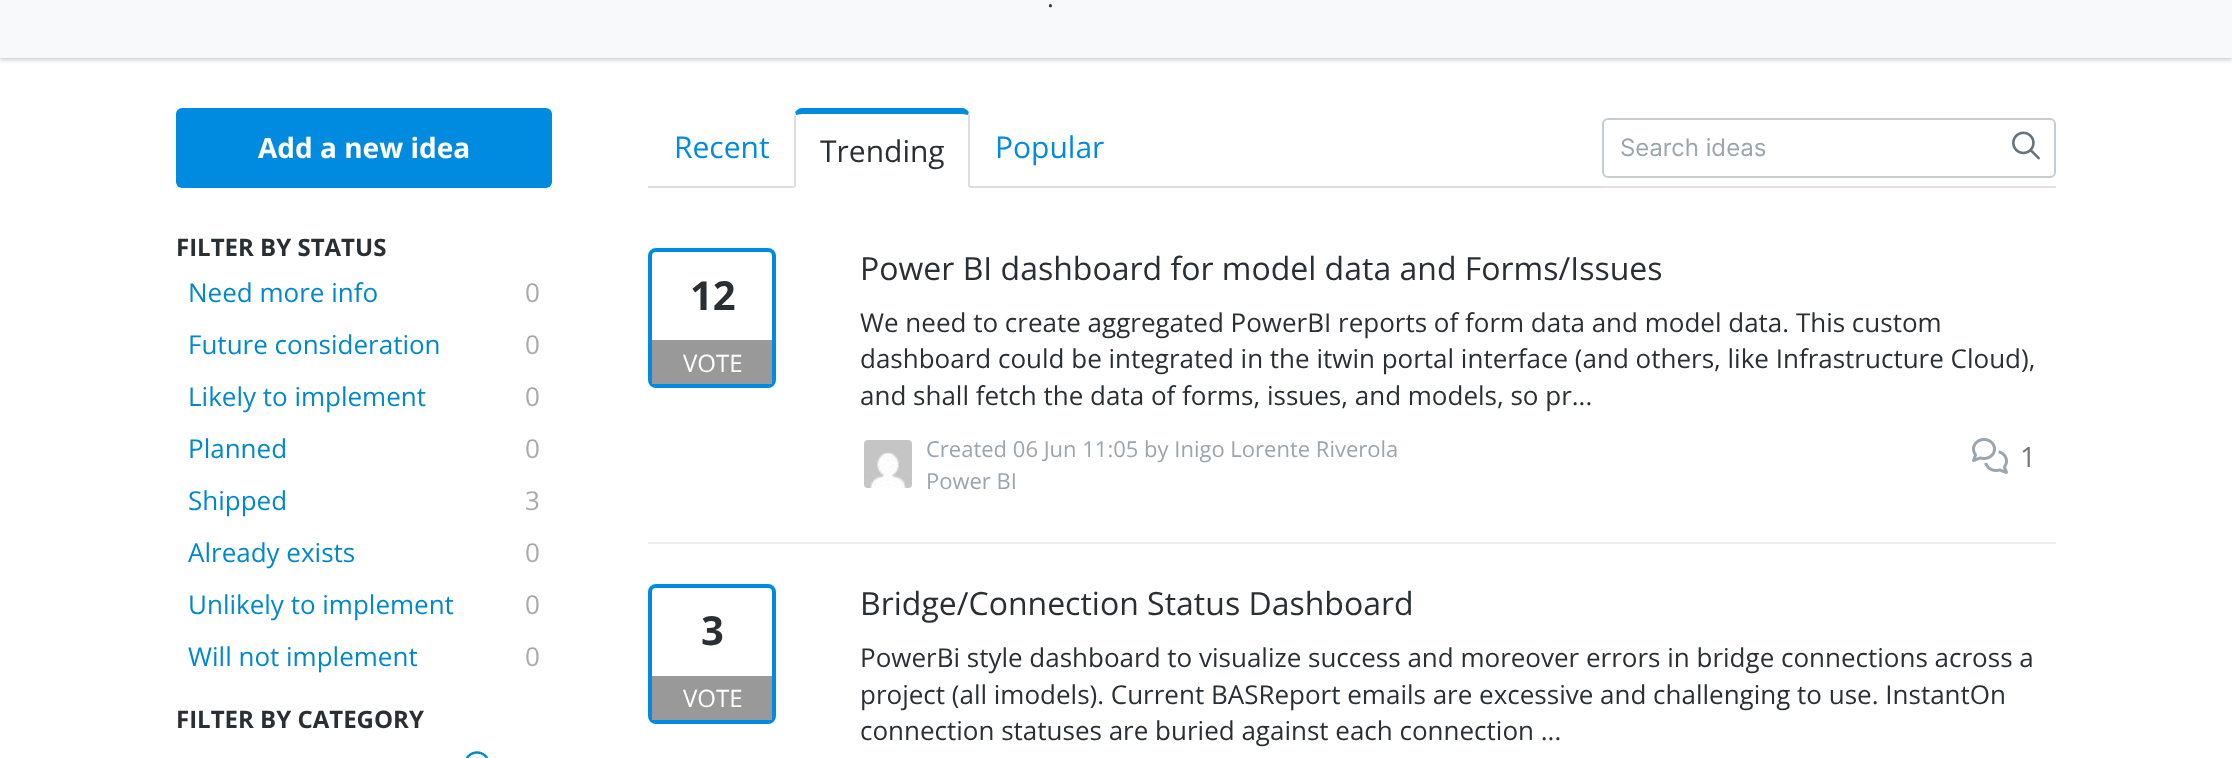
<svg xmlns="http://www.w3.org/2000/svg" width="2232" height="758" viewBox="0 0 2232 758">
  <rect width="100%" height="100%" fill="#fff"/>
  <path d="M0 -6h2232v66H0z" fill="#00000033" filter="blur(2px)"/>
  <path d="M0 0h2232v58H0z" fill="#f8f9fb"/>
  <rect x="176" y="108" width="376" height="80" rx="6" fill="#008be1"/>
  <image x="465" y="751" width="24" height="7" href="img/1.png"/>
  <path d="M648 186h954v2H648z" fill="#ddd"/>
  <path d="M802 108H962C966.5 108 970 111.5 970 116V188H794V116C794 111.5 797.5 108 802 108Z" fill="#fff"/>
  <path d="M802 108C799 108 797 110 795 112L796 115C797 115 800 114 802 114H962C964 114 967 115 968 115L969 112C967 110 965 108 962 108Z" fill="#008be1"/>
  <path d="M970 188V116C970 115 970 113 969 112L968 115V116V186Z" fill="#ddd"/>
  <path d="M794 188L796 186V116V115L795 112L794 116Z" fill="#ddd"/>
  <path d="M1602 186h454v2H1602z" fill="#e1e1e1"/>
  <rect x="1603" y="119" width="452" height="58" rx="5" fill="none" stroke="#c7ccd1" stroke-width="2"/>
  <image x="2012" y="131" width="28" height="29" href="img/2.png"/>
  <path d="M648 542h1408v2H648z" fill="#eee"/>
  <rect x="650" y="250" width="124" height="136" rx="6" fill="none" stroke="#008be1" stroke-width="4"/>
  <path d="M652 340h120v44H652z" fill="#999"/>
  <image x="864" y="440" width="48" height="48" href="img/3.png"/>
  <image x="1972" y="438" width="36" height="36" href="img/4.png"/>
  <rect x="650" y="586" width="124" height="136" rx="6" fill="none" stroke="#008be1" stroke-width="4"/>
  <path d="M652 676h120v44H652z" fill="#999"/>
  <text x="1047" y="7" font-family="Open Sans" font-size="26" fill="#333">.</text>
  <text x="258" y="158" font-family="Open Sans" font-size="28" font-weight="bold" fill="#fff">Add a new idea</text>
  <text x="176" y="256" font-family="Open Sans" font-size="24" font-weight="bold" fill="#2a2f34">FILTER BY STATUS</text>
  <text x="188" y="302" font-family="Open Sans" font-size="26" fill="#08c">Need more info</text>
  <text x="525" y="302" font-family="Open Sans" font-size="26" fill="#aaa">0</text>
  <text x="188" y="354" font-family="Open Sans" font-size="26" fill="#08c">Future consideration</text>
  <text x="525" y="354" font-family="Open Sans" font-size="26" fill="#aaa">0</text>
  <text x="188" y="406" font-family="Open Sans" font-size="26" fill="#08c">Likely to implement</text>
  <text x="525" y="406" font-family="Open Sans" font-size="26" fill="#aaa">0</text>
  <text x="188" y="458" font-family="Open Sans" font-size="26" fill="#08c">Planned</text>
  <text x="525" y="458" font-family="Open Sans" font-size="26" fill="#aaa">0</text>
  <text x="188" y="510" font-family="Open Sans" font-size="26" fill="#08c">Shipped</text>
  <text x="525" y="510" font-family="Open Sans" font-size="26" fill="#aaa">3</text>
  <text x="188" y="562" font-family="Open Sans" font-size="26" fill="#08c">Already exists</text>
  <text x="525" y="562" font-family="Open Sans" font-size="26" fill="#aaa">0</text>
  <text x="188" y="614" font-family="Open Sans" font-size="26" fill="#08c">Unlikely to implement</text>
  <text x="525" y="614" font-family="Open Sans" font-size="26" fill="#aaa">0</text>
  <text x="188" y="666" font-family="Open Sans" font-size="26" fill="#08c">Will not implement</text>
  <text x="525" y="666" font-family="Open Sans" font-size="26" fill="#aaa">0</text>
  <text x="176" y="728" font-family="Open Sans" font-size="24" font-weight="bold" fill="#2a2f34">FILTER BY CATEGORY</text>
  <text x="674" y="158" font-family="Open Sans" font-size="30" fill="#008be1">Recent</text>
  <text x="820" y="162" font-family="Open Sans" font-size="30" fill="#2a2f34">Trending</text>
  <text x="995" y="158" font-family="Open Sans" font-size="30" fill="#008be1">Popular</text>
  <text x="1620" y="156" font-family="Inter" font-size="24" fill="#9ba5ae">Search ideas</text>
  <text x="690" y="310" font-family="Open Sans" font-size="40" font-weight="bold" fill="#2a2f34">12</text>
  <text x="683" y="372" font-family="Open Sans" font-size="24" fill="#fff">VOTE</text>
  <text x="860" y="280" font-family="Open Sans" font-size="32" fill="#2a2f34">Power BI dashboard for model data and Forms/Issues</text>
  <g font-family="Open Sans" font-size="26" fill="#2a2f34">
    <text x="860" y="332">We need to create aggregated PowerBI reports of form data and model data. This custom</text>
    <text x="860" y="368">dashboard could be integrated in the itwin portal interface (and others, like Infrastructure Cloud),</text>
    <text x="860" y="405">and shall fetch the data of forms, issues, and models, so pr...</text>
  </g>
  <g font-family="Open Sans" font-size="22" fill="#9ba5ae">
    <text x="926" y="457">Created 06 Jun 11:05 by Inigo Lorente Riverola</text>
    <text x="926" y="489">Power BI</text>
  </g>
  <text x="2020" y="467" font-family="Open Sans" font-size="28" fill="#777">1</text>
  <text x="701" y="645" font-family="Open Sans" font-size="40" font-weight="bold" fill="#2a2f34">3</text>
  <text x="683" y="707" font-family="Open Sans" font-size="24" fill="#fff">VOTE</text>
  <text x="860" y="615" font-family="Open Sans" font-size="32" fill="#2a2f34">Bridge/Connection Status Dashboard</text>
  <g font-family="Open Sans" font-size="26" fill="#2a2f34">
    <text x="860" y="667">PowerBi style dashboard to visualize success and moreover errors in bridge connections across a</text>
    <text x="860" y="704">project (all imodels). Current BASReport emails are excessive and challenging to use. InstantOn</text>
    <text x="860" y="740">connection statuses are buried against each connection ...</text>
  </g>
</svg>
